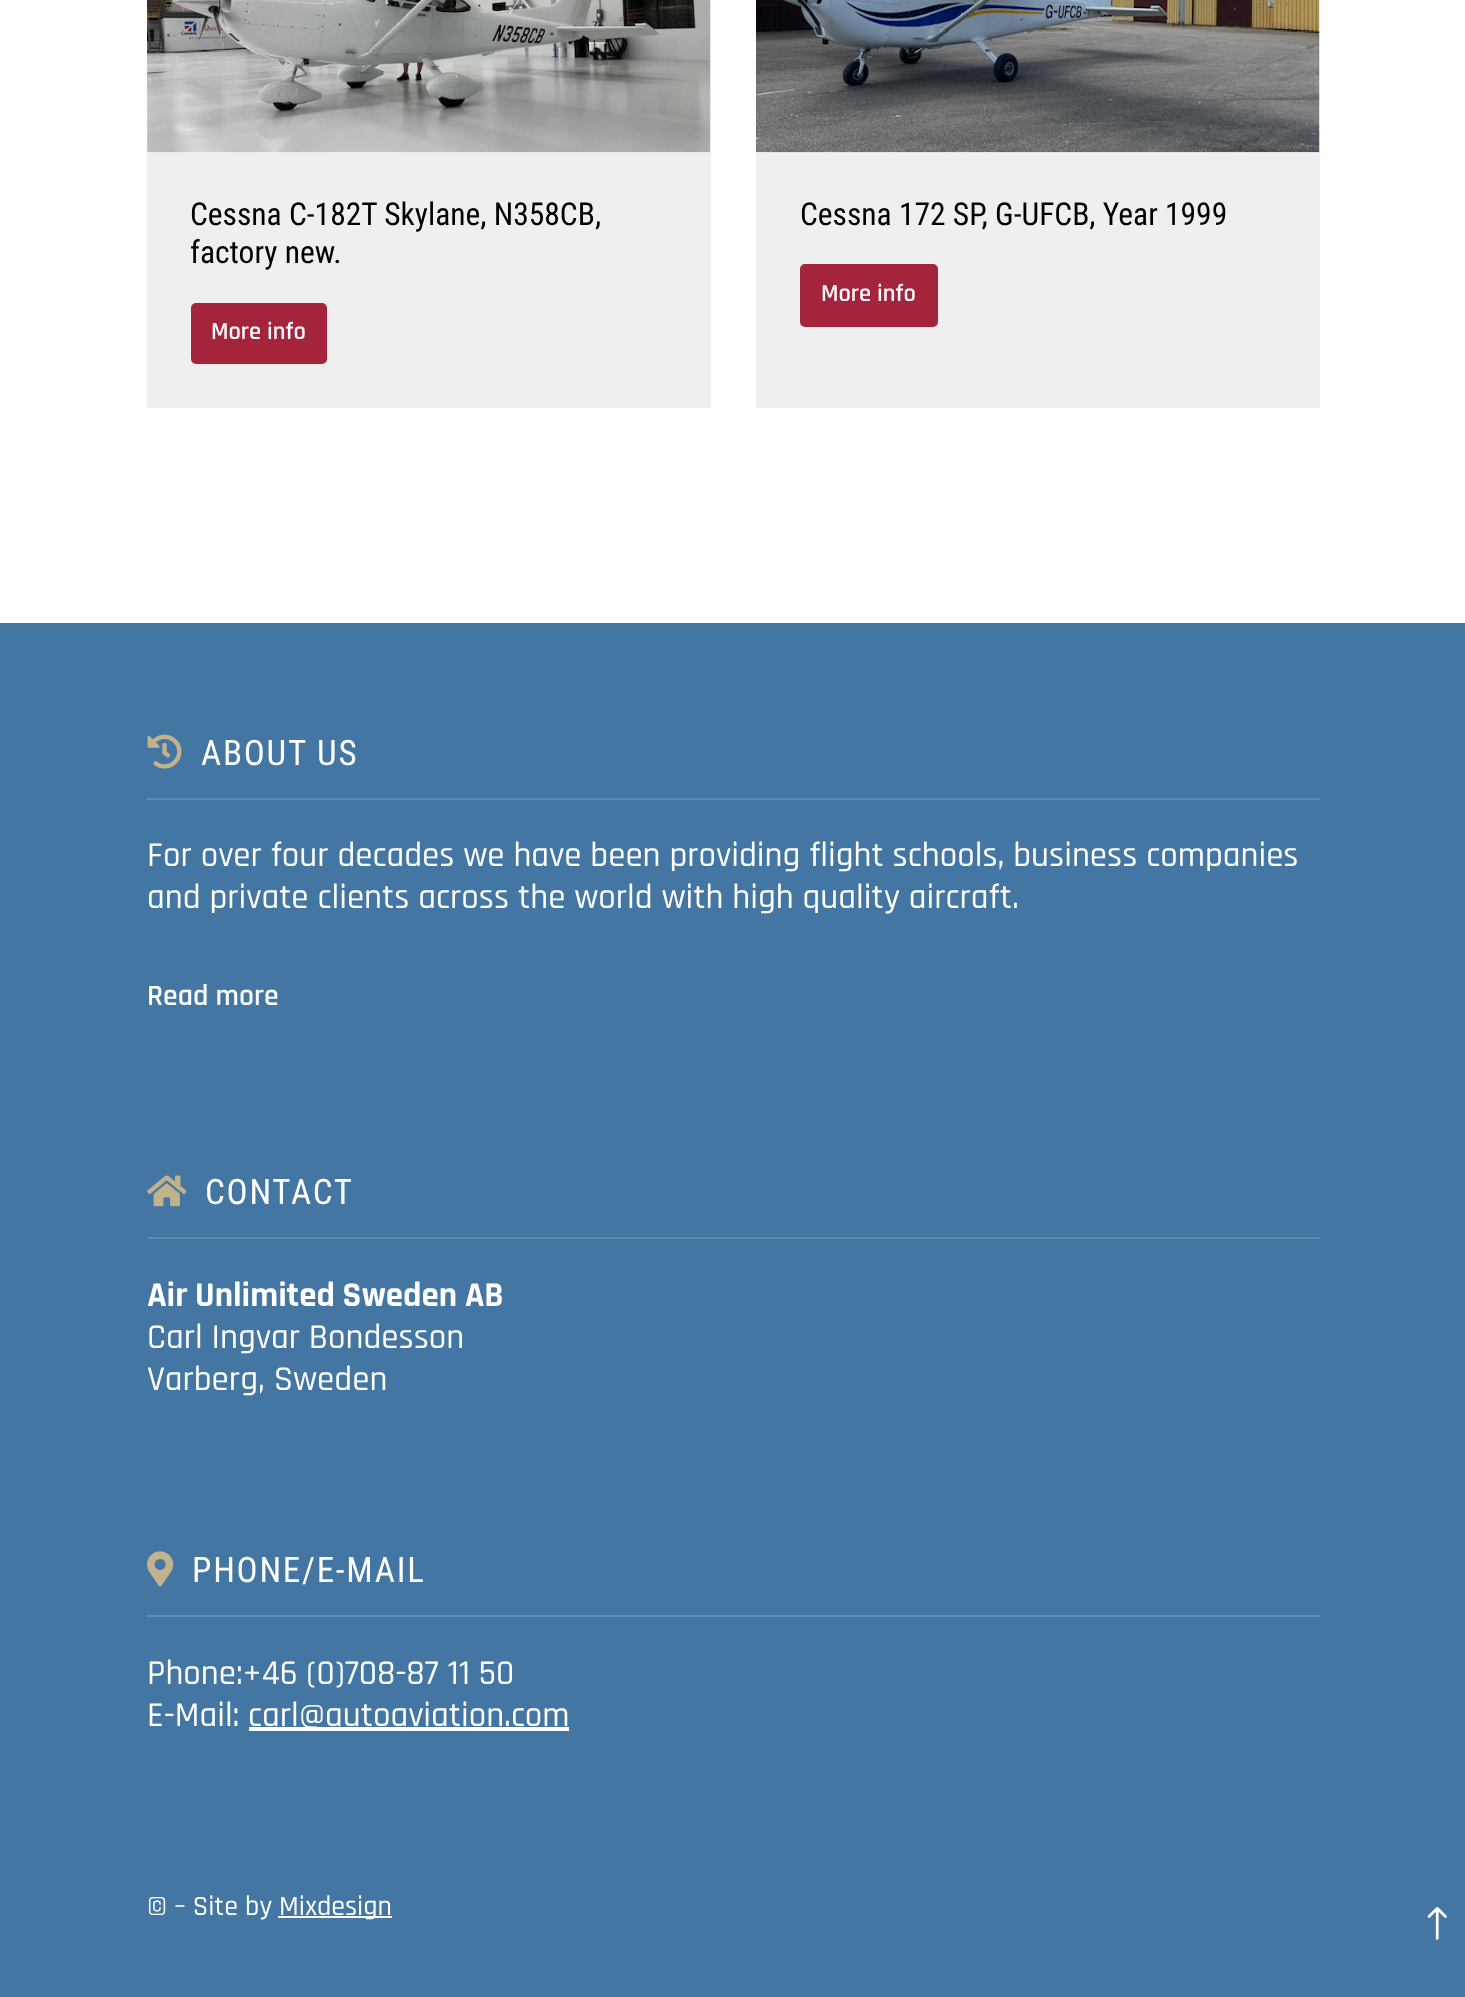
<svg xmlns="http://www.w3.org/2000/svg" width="1465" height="1997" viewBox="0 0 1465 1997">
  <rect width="100%" height="100%" fill="#fff"/>
  <path d="M147 152h564v256H147z" fill="#efefef"/>
  <image x="147" y="0" width="564" height="153" href="img/1.png"/>
  <rect x="191" y="303" width="136" height="61" rx="5" fill="#a4243b"/>
  <path d="M756 152h564v256H756z" fill="#efefef"/>
  <image x="756" y="0" width="564" height="153" href="img/2.png"/>
  <rect x="800" y="264" width="138" height="63" rx="5" fill="#a4243b"/>
  <path d="M0 623h1465v1374H0z" fill="#4376a3"/>
  <image x="147" y="734" width="35" height="35" href="img/3.png"/>
  <path d="M147 798h1173v2H147z" fill="#5f8bb1"/>
  <image x="147" y="1175" width="40" height="32" href="img/4.png"/>
  <path d="M147 1237h1173v2H147z" fill="#5f8bb1"/>
  <image x="147" y="1551" width="27" height="36" href="img/5.png"/>
  <path d="M147 1615h1173v2H147z" fill="#5f8bb1"/>
  <path d="M249 1727h320v4H249z" fill="#fff"/>
  <path d="M278 1916h114v2H278z" fill="#fff"/>
  <image x="1427" y="1907" width="20" height="33" href="img/6.png"/>
  <g font-family="Roboto Condensed" font-size="31.5" fill="#000">
    <text x="190" y="225">Cessna C-182T Skylane, N358CB,</text>
    <text x="190" y="263">factory new.</text>
  </g>
  <text x="211" y="339" font-family="Rajdhani" font-size="24.5" font-weight="600" fill="#fff">More info</text>
  <text x="800" y="225" font-family="Roboto Condensed" font-size="31.5" fill="#000">Cessna 172 SP, G-UFCB, Year 1999</text>
  <text x="821" y="301" font-family="Rajdhani" font-size="24.5" font-weight="600" fill="#fff">More info</text>
  <text x="201" y="765" font-family="Roboto Condensed" font-size="35" letter-spacing="1.75" fill="#fff">ABOUT US</text>
  <g font-family="Rajdhani" font-size="35" font-weight="500" fill="#fff">
    <text x="147" y="866">For over four decades we have been providing flight schools, business companies</text>
    <text x="147" y="908">and private clients across the world with high quality aircraft.</text>
  </g>
  <text x="147" y="1005" font-family="Rajdhani" font-size="29.75" font-weight="600" fill="#fff">Read more</text>
  <text x="205" y="1204" font-family="Roboto Condensed" font-size="35" letter-spacing="1.75" fill="#fff">CONTACT</text>
  <text x="147" y="1306" font-family="Rajdhani" font-size="35" font-weight="bold" fill="#fff">Air Unlimited Sweden AB</text>
  <g font-family="Rajdhani" font-size="35" font-weight="500" fill="#fff">
    <text x="147" y="1348">Carl Ingvar Bondesson</text>
    <text x="147" y="1390">Varberg, Sweden</text>
  </g>
  <text x="192" y="1582" font-family="Roboto Condensed" font-size="35" letter-spacing="1.75" fill="#fff">PHONE/E-MAIL</text>
  <g font-family="Rajdhani" font-size="35" font-weight="500" fill="#fff">
    <text x="147" y="1684">Phone:+46 (0)708-87 11 50</text>
    <text x="147" y="1726">E-Mail:</text>
    <text x="248" y="1726">carl@autoaviation.com</text>
  </g>
  <g font-family="Rajdhani" font-size="28" font-weight="500" fill="#fff">
    <text x="147" y="1915">© – Site by</text>
    <text x="279" y="1915">Mixdesign</text>
  </g>
</svg>
